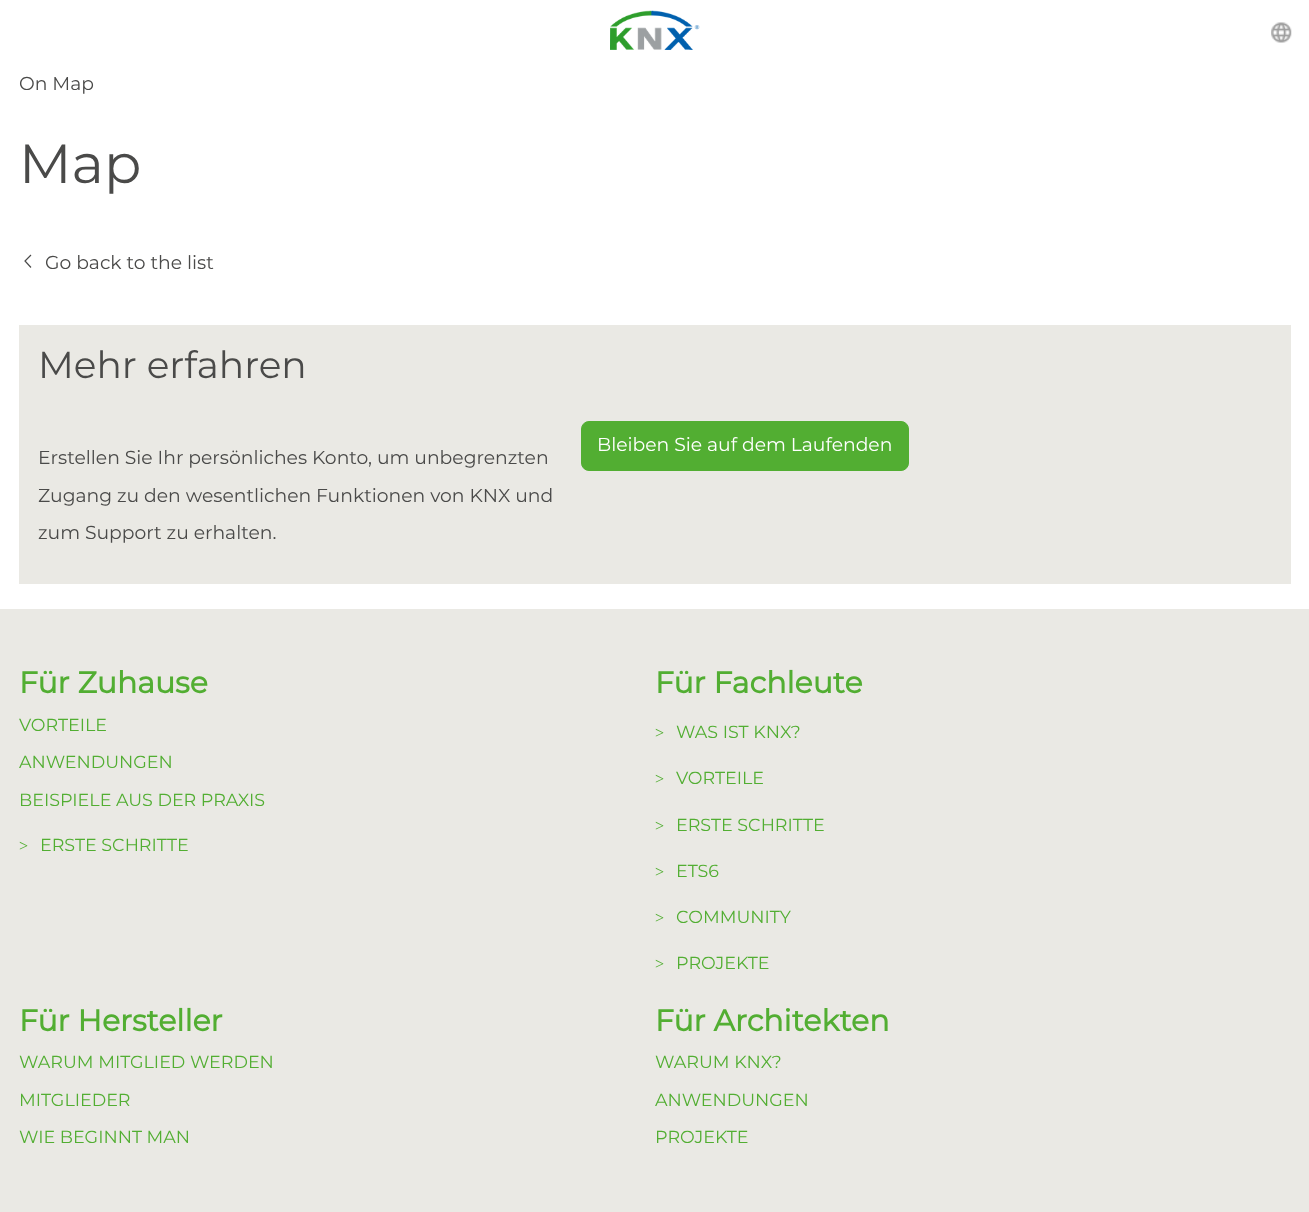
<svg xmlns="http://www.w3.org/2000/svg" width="1309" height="1212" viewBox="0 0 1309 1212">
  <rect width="100%" height="100%" fill="#fff"/>
  <image x="610" y="10" width="90" height="40" href="img/1.png"/>
  <image x="1271" y="22" width="21" height="21" href="img/2.png"/>
  <path d="M31 255L25 261L31 267.5" fill="none" stroke="#4a4a49" stroke-width="1.2"/>
  <path d="M19 325h1272v259H19z" fill="#eae9e4"/>
  <rect x="581.5" y="421.5" width="327" height="49" rx="7.5" fill="#52ae32" stroke="#52ae32"/>
  <path d="M0 609h1309v603H0z" fill="#eae9e4"/>
  <text x="19" y="90" font-family="Montserrat" font-size="18.75" fill="#4a4a49">On Map</text>
  <text x="19" y="183" font-family="Montserrat" font-size="55" fill="#4a4a49">Map</text>
  <text x="45" y="269" font-family="Montserrat" font-size="18.75" fill="#4a4a49">Go back to the list</text>
  <text x="38" y="378" font-family="Montserrat" font-size="37.5" fill="#4a4a49">Mehr erfahren</text>
  <text x="597" y="451" font-family="Montserrat" font-size="18.75" fill="#fff">Bleiben Sie auf dem Laufenden</text>
  <g font-family="Montserrat" font-size="18.75" fill="#4a4a49">
    <text x="38" y="464">Erstellen Sie Ihr persönliches Konto, um unbegrenzten</text>
    <text x="38" y="502">Zugang zu den wesentlichen Funktionen von KNX und</text>
    <text x="38" y="539">zum Support zu erhalten.</text>
  </g>
  <text x="19" y="693" font-family="Montserrat" font-size="30" font-weight="bold" fill="#52ae32">Für Zuhause</text>
  <g font-family="Montserrat" font-size="17.5" fill="#52ae32">
    <text x="19" y="731">VORTEILE</text>
    <text x="19" y="768">ANWENDUNGEN</text>
    <text x="19" y="806">BEISPIELE AUS DER PRAXIS</text>
  </g>
  <text x="19" y="851" font-family="Liberation Serif" font-size="16" fill="#52ae32">&gt;</text>
  <text x="40" y="851" font-family="Montserrat" font-size="17.5" fill="#52ae32">ERSTE SCHRITTE</text>
  <text x="655" y="693" font-family="Montserrat" font-size="30" font-weight="bold" fill="#52ae32">Für Fachleute</text>
  <text x="655" y="738" font-family="Liberation Serif" font-size="16" fill="#52ae32">&gt;</text>
  <text x="676" y="738" font-family="Montserrat" font-size="17.5" fill="#52ae32">WAS IST KNX?</text>
  <text x="655" y="784" font-family="Liberation Serif" font-size="16" fill="#52ae32">&gt;</text>
  <text x="676" y="784" font-family="Montserrat" font-size="17.5" fill="#52ae32">VORTEILE</text>
  <text x="655" y="831" font-family="Liberation Serif" font-size="16" fill="#52ae32">&gt;</text>
  <text x="676" y="831" font-family="Montserrat" font-size="17.5" fill="#52ae32">ERSTE SCHRITTE</text>
  <text x="655" y="877" font-family="Liberation Serif" font-size="16" fill="#52ae32">&gt;</text>
  <text x="676" y="877" font-family="Montserrat" font-size="17.5" fill="#52ae32">ETS6</text>
  <text x="655" y="923" font-family="Liberation Serif" font-size="16" fill="#52ae32">&gt;</text>
  <text x="676" y="923" font-family="Montserrat" font-size="17.5" fill="#52ae32">COMMUNITY</text>
  <text x="655" y="969" font-family="Liberation Serif" font-size="16" fill="#52ae32">&gt;</text>
  <text x="676" y="969" font-family="Montserrat" font-size="17.5" fill="#52ae32">PROJEKTE</text>
  <text x="19" y="1031" font-family="Montserrat" font-size="30" font-weight="bold" fill="#52ae32">Für Hersteller</text>
  <g font-family="Montserrat" font-size="17.5" fill="#52ae32">
    <text x="19" y="1068">WARUM MITGLIED WERDEN</text>
    <text x="19" y="1106">MITGLIEDER</text>
    <text x="19" y="1143">WIE BEGINNT MAN</text>
  </g>
  <text x="655" y="1031" font-family="Montserrat" font-size="30" font-weight="bold" fill="#52ae32">Für Architekten</text>
  <g font-family="Montserrat" font-size="17.5" fill="#52ae32">
    <text x="655" y="1068">WARUM KNX?</text>
    <text x="655" y="1106">ANWENDUNGEN</text>
    <text x="655" y="1143">PROJEKTE</text>
  </g>
</svg>
